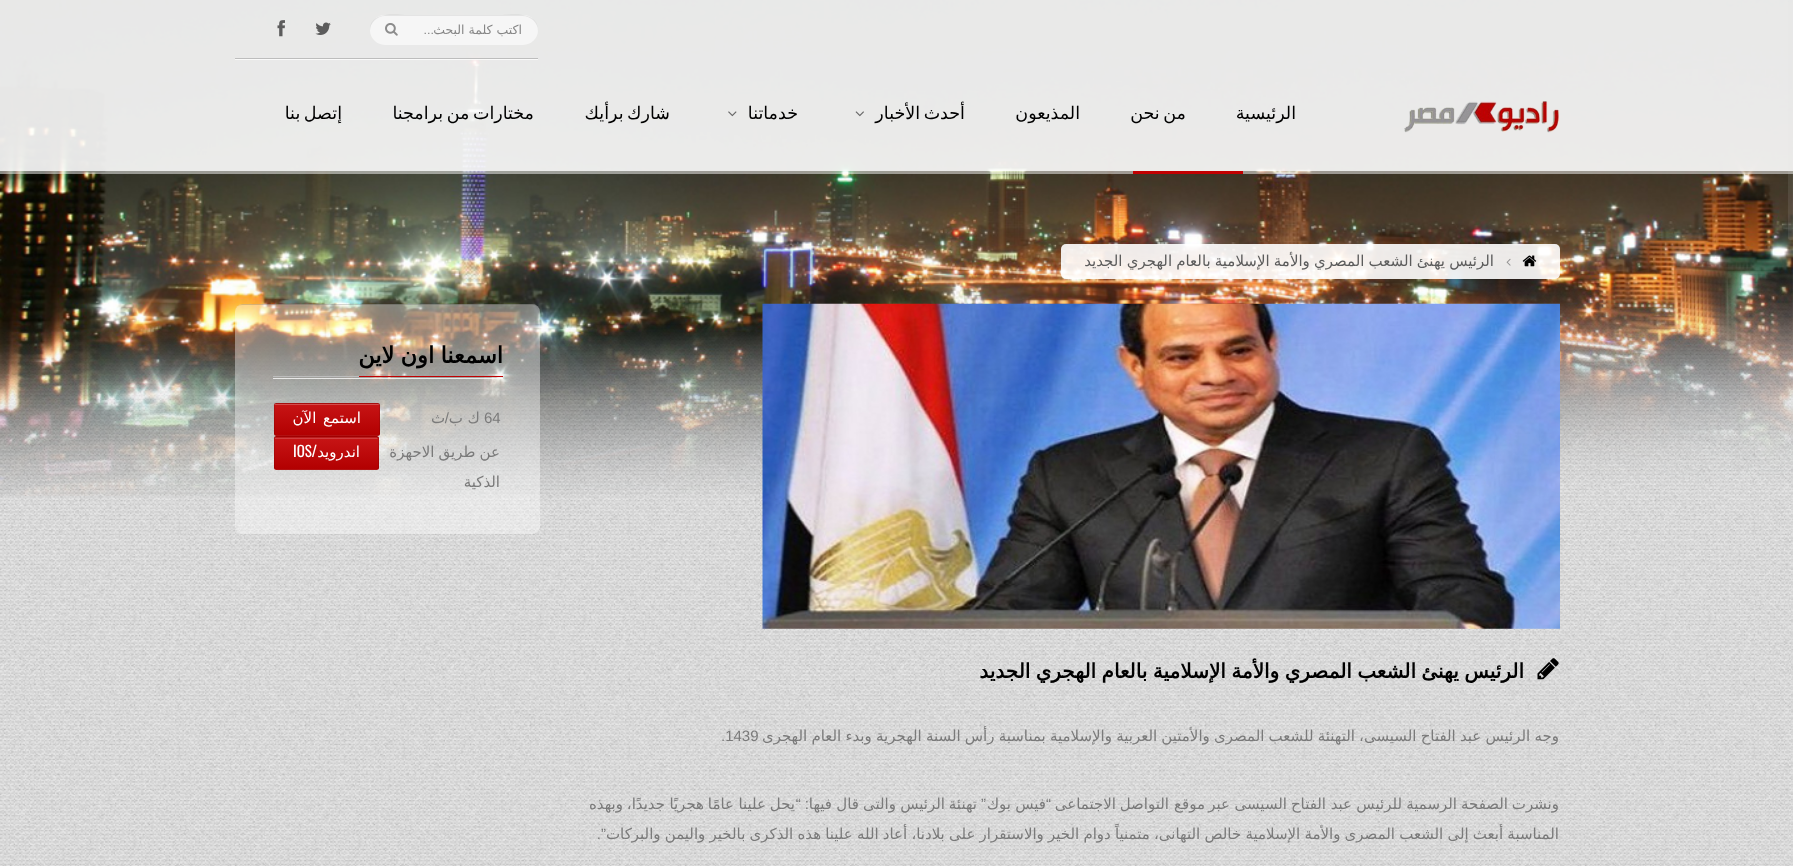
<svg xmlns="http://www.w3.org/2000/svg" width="1793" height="866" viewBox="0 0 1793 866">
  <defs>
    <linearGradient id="g1" gradientUnits="userSpaceOnUse" x1="275" y1="404" x2="275" y2="373"><stop offset="0" stop-color="#000" stop-opacity="0.08"/><stop offset="0.5" stop-color="#808080" stop-opacity="0.08"/><stop offset="1" stop-color="#fff" stop-opacity="0.08"/></linearGradient>
    <linearGradient id="g2" gradientUnits="userSpaceOnUse" x1="275" y1="435" x2="275" y2="404"><stop offset="0" stop-color="#000" stop-opacity="0.08"/><stop offset="0.5" stop-color="#808080" stop-opacity="0.08"/><stop offset="1" stop-color="#fff" stop-opacity="0.08"/></linearGradient>
    <linearGradient id="g3" gradientUnits="userSpaceOnUse" x1="275" y1="466" x2="275" y2="435"><stop offset="0" stop-color="#000" stop-opacity="0.08"/><stop offset="0.5" stop-color="#808080" stop-opacity="0.08"/><stop offset="1" stop-color="#fff" stop-opacity="0.08"/></linearGradient>
    <linearGradient id="g4" gradientUnits="userSpaceOnUse" x1="275" y1="438" x2="275" y2="406"><stop offset="0" stop-color="#000" stop-opacity="0.08"/><stop offset="0.5" stop-color="#808080" stop-opacity="0.08"/><stop offset="1" stop-color="#fff" stop-opacity="0.08"/></linearGradient>
    <linearGradient id="g5" gradientUnits="userSpaceOnUse" x1="275" y1="469" x2="275" y2="438"><stop offset="0" stop-color="#000" stop-opacity="0.08"/><stop offset="0.5" stop-color="#808080" stop-opacity="0.08"/><stop offset="1" stop-color="#fff" stop-opacity="0.08"/></linearGradient>
    <linearGradient id="g6" gradientUnits="userSpaceOnUse" x1="275" y1="500" x2="275" y2="469"><stop offset="0" stop-color="#000" stop-opacity="0.08"/><stop offset="0.5" stop-color="#808080" stop-opacity="0.08"/><stop offset="1" stop-color="#fff" stop-opacity="0.08"/></linearGradient>
  </defs>
  <rect width="100%" height="100%" fill="#fff"/>
  <image x="0" y="0" width="1793" height="866" href="img/1.png"/>
  <image x="0" y="0" width="1793" height="496" href="img/2.png"/>
  <path d="M0 171V174H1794V3V171Z" fill="#ffffff80"/>
  <path d="M0 0h1793v171H0z" fill="#ffffffe6"/>
  <rect x="1788" width="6" height="240" rx="2.5" fill="#dddddd1a"/>
  <path d="M235 59V60H538V1V59Z" fill="#ffffffbf"/>
  <path d="M235 58h303v1H235z" fill="#bdbdbd"/>
  <rect x="370" y="15" width="168" height="30" rx="15" fill="#f6f6f6"/>
  <path d="M385 16H522C531 16 538 23 538 31C539 10 511 15 500 15H408C397 15 369 10 370 31C370 23 377 16 385 16Z" fill="#00000012"/>
  <image x="385" y="23" width="13" height="13" href="img/3.png"/>
  <image x="315" y="22" width="16" height="13" href="img/4.png"/>
  <image x="277" y="20" width="8" height="17" href="img/5.png"/>
  <image x="1404" y="101" width="155" height="32" href="img/6.png"/>
  <image x="855" y="111" width="9" height="6" href="img/7.png"/>
  <image x="728" y="111" width="9" height="6" href="img/8.png"/>
  <path d="M1133 171h110v3H1133z" fill="#c20001"/>
  <rect x="1061" y="244" width="499" height="35" rx="5" fill="#ffffffe6"/>
  <image x="1522" y="255" width="15" height="12" href="img/9.png"/>
  <image x="1506" y="258" width="5" height="8" href="img/10.png"/>
  <rect x="235" y="304" width="305" height="230" rx="8" fill="#ffffff66"/>
  <path d="M242 305H532C537 305 540 308 540 312C540 308 536 304 532 304H243C239 304 235 308 235 312C235 308 238 305 242 305Z" fill="#00000026"/>
  <path d="M359 376h144v1H359z" fill="#c20001"/>
  <path d="M273 378h230v1H273z" fill="#ffffffbf"/>
  <path d="M273 376h86v1H273z" fill="#bdbdbd"/>
  <rect x="274" y="403" width="106" height="33" rx="2.5" fill="#c20001"/>
  <path d="M274 403h106v1H274z" fill="url(#g1)"/>
  <path d="M274 404h106v31H274z" fill="url(#g2)"/>
  <path d="M274 435h106v1H274z" fill="url(#g3)"/>
  <rect x="274.5" y="403.5" width="105" height="32" rx="2" fill="none" stroke="#0000001a"/>
  <image x="275" y="403" width="104" height="2" href="img/11.png"/>
  <rect x="274" y="436" width="105" height="34" rx="2.5" fill="#c20001"/>
  <path d="M274 436h105v2H274z" fill="url(#g4)"/>
  <path d="M274 438h105v31H274z" fill="url(#g5)"/>
  <path d="M274 469h105v1H274z" fill="url(#g6)"/>
  <rect x="274.5" y="436.5" width="104" height="33" rx="2" fill="none" stroke="#0000001a"/>
  <image x="275" y="437" width="103" height="2" href="img/12.png"/>
  <image x="762" y="303" width="798" height="326" href="img/13.png"/>
  <image x="1537" y="658" width="22" height="22" href="img/14.png"/>
  <text x="522" y="34" font-family="DejaVu Sans" font-size="12.5" direction="rtl" fill="#868686">اكتب كلمة البحث</text>
  <text x="434" y="34" font-family="Liberation Sans" font-size="12.5" direction="rtl" fill="#868686">...</text>
  <g font-family="DejaVu Sans" font-size="17.5" direction="rtl" fill="#000">
    <text x="1296" y="119">الرئيسية</text>
    <text x="1186" y="119" word-spacing="-2">من نحن</text>
    <text x="1080" y="119">المذيعون</text>
    <text x="965" y="119" word-spacing="-2">أحدث الأخبار</text>
    <text x="798" y="119">خدماتنا</text>
    <text x="670" y="119" word-spacing="-2">شارك برأيك</text>
    <text x="534" y="119" word-spacing="-2">مختارات من برامجنا</text>
    <text x="342" y="119" word-spacing="-2">إتصل بنا</text>
  </g>
  <text x="1494" y="266" word-spacing="-0.6" font-family="DejaVu Sans" font-size="15" direction="rtl" fill="#5c5c5c">الرئيس يهنئ الشعب المصري والأمة الإسلامية بالعام الهجري الجديد</text>
  <text x="503" y="363" word-spacing="-1" font-family="DejaVu Sans" font-size="22.5" font-weight="bold" direction="rtl" fill="#000">اسمعنا اون لاين</text>
  <text x="484" y="423" font-family="Liberation Sans" font-size="15" fill="#7a7a7a">64</text>
  <text x="480" y="423" font-family="DejaVu Sans" font-size="15" direction="rtl" fill="#7a7a7a">ك ب</text>
  <text x="449" y="423" font-family="Liberation Sans" font-size="15" direction="rtl" fill="#7a7a7a">/</text>
  <text x="445" y="423" font-family="DejaVu Sans" font-size="15" direction="rtl" fill="#7a7a7a">ث</text>
  <text x="361" y="423" word-spacing="2" font-family="DejaVu Sans" font-size="15" direction="rtl" fill="#fff">استمع الآن</text>
  <g font-family="DejaVu Sans" font-size="15" direction="rtl" fill="#7a7a7a">
    <text x="500" y="457" word-spacing="-0.6">عن طريق الاحهزة</text>
    <text x="500" y="487">الذكية</text>
  </g>
  <text x="360" y="457" font-family="DejaVu Sans" font-size="15" direction="rtl" fill="#fff">اندرويد</text>
  <text x="317" y="457" font-family="Oswald" font-size="15" direction="rtl" fill="#fff">/</text>
  <text x="293" y="457" font-family="Oswald" font-size="15" fill="#fff">IOS</text>
  <text x="1524" y="678" word-spacing="-1" font-family="DejaVu Sans" font-size="20" font-weight="bold" direction="rtl" fill="#000">الرئيس يهنئ الشعب المصري والأمة الإسلامية بالعام الهجري الجديد</text>
  <text x="1559" y="741" word-spacing="-0.6" font-family="DejaVu Sans" font-size="15" direction="rtl" fill="#7a7a7a">وجه الرئيس عبد الفتاح السيسى، التهنئة للشعب المصرى والأمتين العربية والإسلامية بمناسبة رأس السنة الهجرية وبدء العام الهجرى</text>
  <text x="721" y="741" font-family="Liberation Sans" font-size="15" fill="#7a7a7a">.1439</text>
  <g font-family="DejaVu Sans" font-size="15" direction="rtl" fill="#7a7a7a">
    <text x="1559" y="809">ونشرت</text>
    <text x="1508" y="809">الصفحة</text>
    <text x="1457" y="809">الرسمية</text>
    <text x="1402" y="809">للرئيس</text>
    <text x="1352" y="809">عبد</text>
    <text x="1326" y="809">الفتاح</text>
    <text x="1287" y="809">السيسى</text>
    <text x="1230" y="809">عبر</text>
    <text x="1205" y="809">موقع</text>
    <text x="1169" y="809">التواصل</text>
    <text x="1116" y="809">الاجتماعى</text>
  </g>
  <text x="1051" y="809" font-family="Liberation Sans" font-size="15" direction="rtl" fill="#7a7a7a">“</text>
  <g font-family="DejaVu Sans" font-size="15" direction="rtl" fill="#7a7a7a">
    <text x="1046" y="809">فيس</text>
    <text x="1011" y="809">بوك</text>
  </g>
  <text x="986" y="809" font-family="Liberation Sans" font-size="15" direction="rtl" fill="#7a7a7a">”</text>
  <g font-family="DejaVu Sans" font-size="15" direction="rtl" fill="#7a7a7a">
    <text x="977" y="809">تهنئة</text>
    <text x="945" y="809">الرئيس</text>
    <text x="896" y="809">والتى</text>
    <text x="859" y="809">قال</text>
    <text x="832" y="809">فيها</text>
  </g>
  <text x="809" y="809" font-family="Liberation Sans" font-size="15" direction="rtl" fill="#7a7a7a">: “</text>
  <g font-family="DejaVu Sans" font-size="15" direction="rtl" fill="#7a7a7a">
    <text x="795" y="809">يحل</text>
    <text x="766" y="809">علينا</text>
    <text x="734" y="809">عامًا</text>
    <text x="704" y="809">هجريًا</text>
    <text x="665" y="809">جديدًا،</text>
    <text x="623" y="809">وبهذه</text>
    <text x="1559" y="839" word-spacing="-0.6">المناسبة أبعث إلى الشعب المصرى والأمة الإسلامية خالص التهانى، متمنياً دوام الخير والاستقرار على بلادنا، أعاد الله علينا هذه الذكرى بالخير واليمن والبركات</text>
  </g>
  <text x="606" y="839" font-family="Liberation Sans" font-size="15" direction="rtl" fill="#7a7a7a">”.</text>
</svg>
